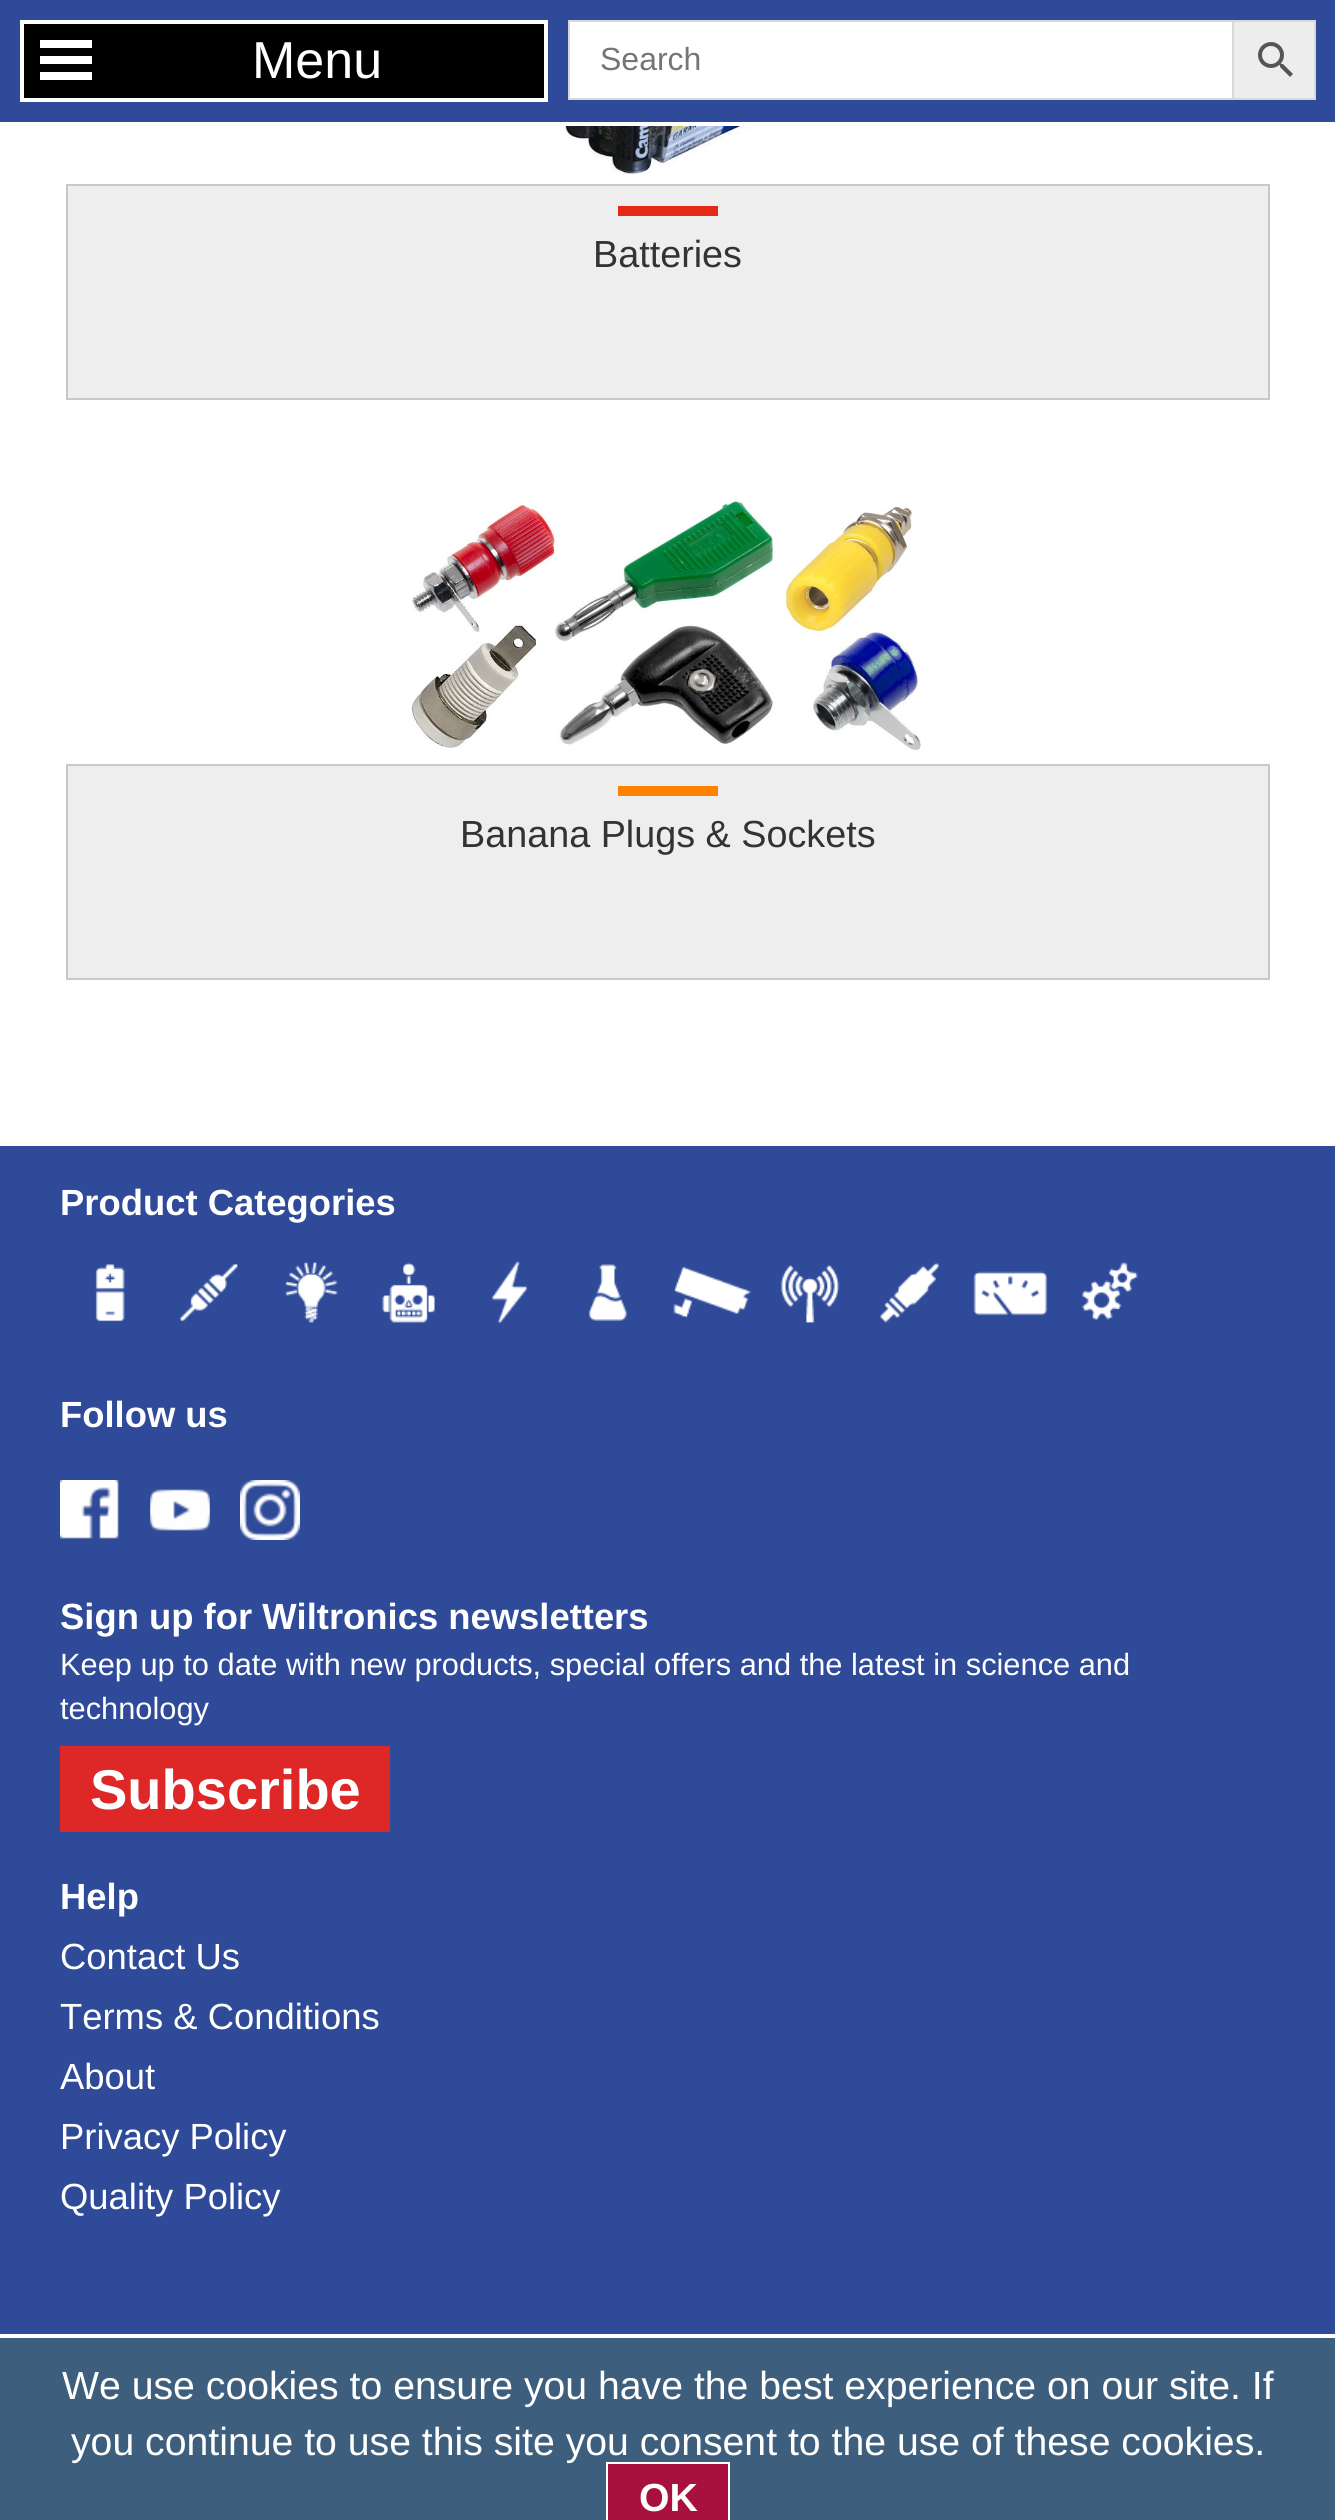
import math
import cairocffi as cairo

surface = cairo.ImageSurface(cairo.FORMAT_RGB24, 1335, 2520)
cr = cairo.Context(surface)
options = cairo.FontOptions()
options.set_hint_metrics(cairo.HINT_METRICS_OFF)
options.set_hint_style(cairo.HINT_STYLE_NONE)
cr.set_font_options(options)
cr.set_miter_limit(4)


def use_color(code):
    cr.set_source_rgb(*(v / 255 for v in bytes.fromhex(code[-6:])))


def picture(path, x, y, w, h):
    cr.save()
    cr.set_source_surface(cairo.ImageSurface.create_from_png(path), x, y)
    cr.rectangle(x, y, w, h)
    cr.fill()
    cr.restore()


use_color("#ffffff")
cr.paint()
use_color("#2e4a98")
cr.rectangle(0, 0, 1335, 122)
cr.fill()
use_color("#000000")
cr.rectangle(22, 22, 524, 78)
cr.fill_preserve()
use_color("#ffffff")
cr.set_line_width(4)
cr.stroke()
cr.rectangle(40, 72, 52, 8)
cr.fill()
cr.rectangle(40, 56, 52, 8)
cr.fill()
cr.rectangle(40, 40, 52, 8)
cr.fill()
cr.select_font_face("Liberation Sans")
cr.set_font_size(52)
cr.move_to(252, 78)
cr.show_text("Menu")
cr.rectangle(570, 22, 662, 76)
cr.fill()
use_color("#ededed")
cr.rectangle(1233, 21, 82, 78)
cr.fill_preserve()
use_color("#d8d8d8")
cr.set_line_width(2)
cr.stroke()
cr.rectangle(569, 21, 664, 78)
cr.stroke()
cr.set_font_size(32)
use_color("#757575")
cr.move_to(600, 70)
cr.show_text("Search")
picture("img1.png", 1258, 42, 35, 35)
picture("img2.png", 512, 126, 312, 48)
use_color("#eeeeee")
cr.rectangle(67, 185, 1202, 214)
cr.fill_preserve()
use_color("#c8c8c8")
cr.stroke()
use_color("#e62817")
cr.rectangle(618, 206, 100, 10)
cr.fill()
cr.set_font_size(37.75)
use_color("#333333")
cr.move_to(593, 267)
cr.show_text("Batteries")
picture("img3.png", 411, 500, 510, 251)
use_color("#eeeeee")
cr.rectangle(67, 765, 1202, 214)
cr.fill_preserve()
use_color("#c8c8c8")
cr.stroke()
use_color("#ff8100")
cr.rectangle(618, 786, 100, 10)
cr.fill()
use_color("#333333")
cr.move_to(460, 847)
cr.show_text("Banana Plugs & Sockets")
use_color("#2e4a98")
cr.rectangle(0, 1146, 1335, 1188)
cr.fill()
cr.select_font_face("Liberation Sans", cairo.FONT_SLANT_NORMAL, cairo.FONT_WEIGHT_BOLD)
cr.set_font_size(36.4)
use_color("#ffffff")
cr.move_to(60, 1215)
cr.show_text("Product Categories")
picture("img4.png", 95, 1264, 30, 58)
picture("img5.png", 180, 1264, 58, 58)
picture("img6.png", 285, 1261, 53, 62)
picture("img7.png", 382, 1262, 53, 61)
picture("img8.png", 492, 1261, 35, 62)
picture("img9.png", 589, 1264, 38, 58)
picture("img10.png", 673, 1267, 79, 51)
picture("img11.png", 780, 1265, 60, 58)
picture("img12.png", 879, 1262, 60, 61)
picture("img13.png", 973, 1271, 75, 45)
picture("img14.png", 1082, 1262, 56, 58)
cr.move_to(60, 1427)
cr.show_text("Follow us")
picture("img15.png", 60, 1480, 59, 59)
picture("img16.png", 150, 1489, 60, 42)
picture("img17.png", 240, 1480, 60, 60)
cr.move_to(60, 1629)
cr.show_text("Sign up for Wiltronics newsletters")
cr.select_font_face("Liberation Sans")
cr.set_font_size(30.8)
cr.move_to(60, 1675)
cr.show_text("Keep up to date with new products, special offers and the latest in science and")
cr.move_to(60, 1719)
cr.show_text("technology")
use_color("#dd2827")
cr.rectangle(60, 1746, 330, 86)
cr.fill()
cr.select_font_face("Liberation Sans", cairo.FONT_SLANT_NORMAL, cairo.FONT_WEIGHT_BOLD)
cr.set_font_size(56)
use_color("#ffffff")
cr.move_to(90, 1809)
cr.show_text("Subscribe")
cr.set_font_size(36.4)
cr.move_to(60, 1909)
cr.show_text("Help")
cr.select_font_face("Liberation Sans")
cr.move_to(60, 1969)
cr.show_text("Contact Us")
cr.move_to(60, 2029)
cr.show_text("Terms & Conditions")
cr.move_to(60, 2089)
cr.show_text("About")
cr.move_to(60, 2149)
cr.show_text("Privacy Policy")
cr.move_to(60, 2209)
cr.show_text("Quality Policy")
use_color("#3e5e7d")
cr.rectangle(0, 2338, 1335, 182)
cr.fill()
cr.set_font_size(39.2)
use_color("#ffffff")
cr.move_to(62, 2399)
cr.show_text("We use cookies to ensure you have the best experience on our site. If")
cr.move_to(71, 2455)
cr.show_text("you continue to use this site you consent to the use of these cookies.")
use_color("#a8113e")
cr.rectangle(607, 2463, 122, 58)
cr.fill_preserve()
use_color("#ffffff")
cr.stroke()
cr.select_font_face("Liberation Sans", cairo.FONT_SLANT_NORMAL, cairo.FONT_WEIGHT_BOLD)
cr.move_to(639, 2511)
cr.show_text("OK")
surface.write_to_png("result.png")
